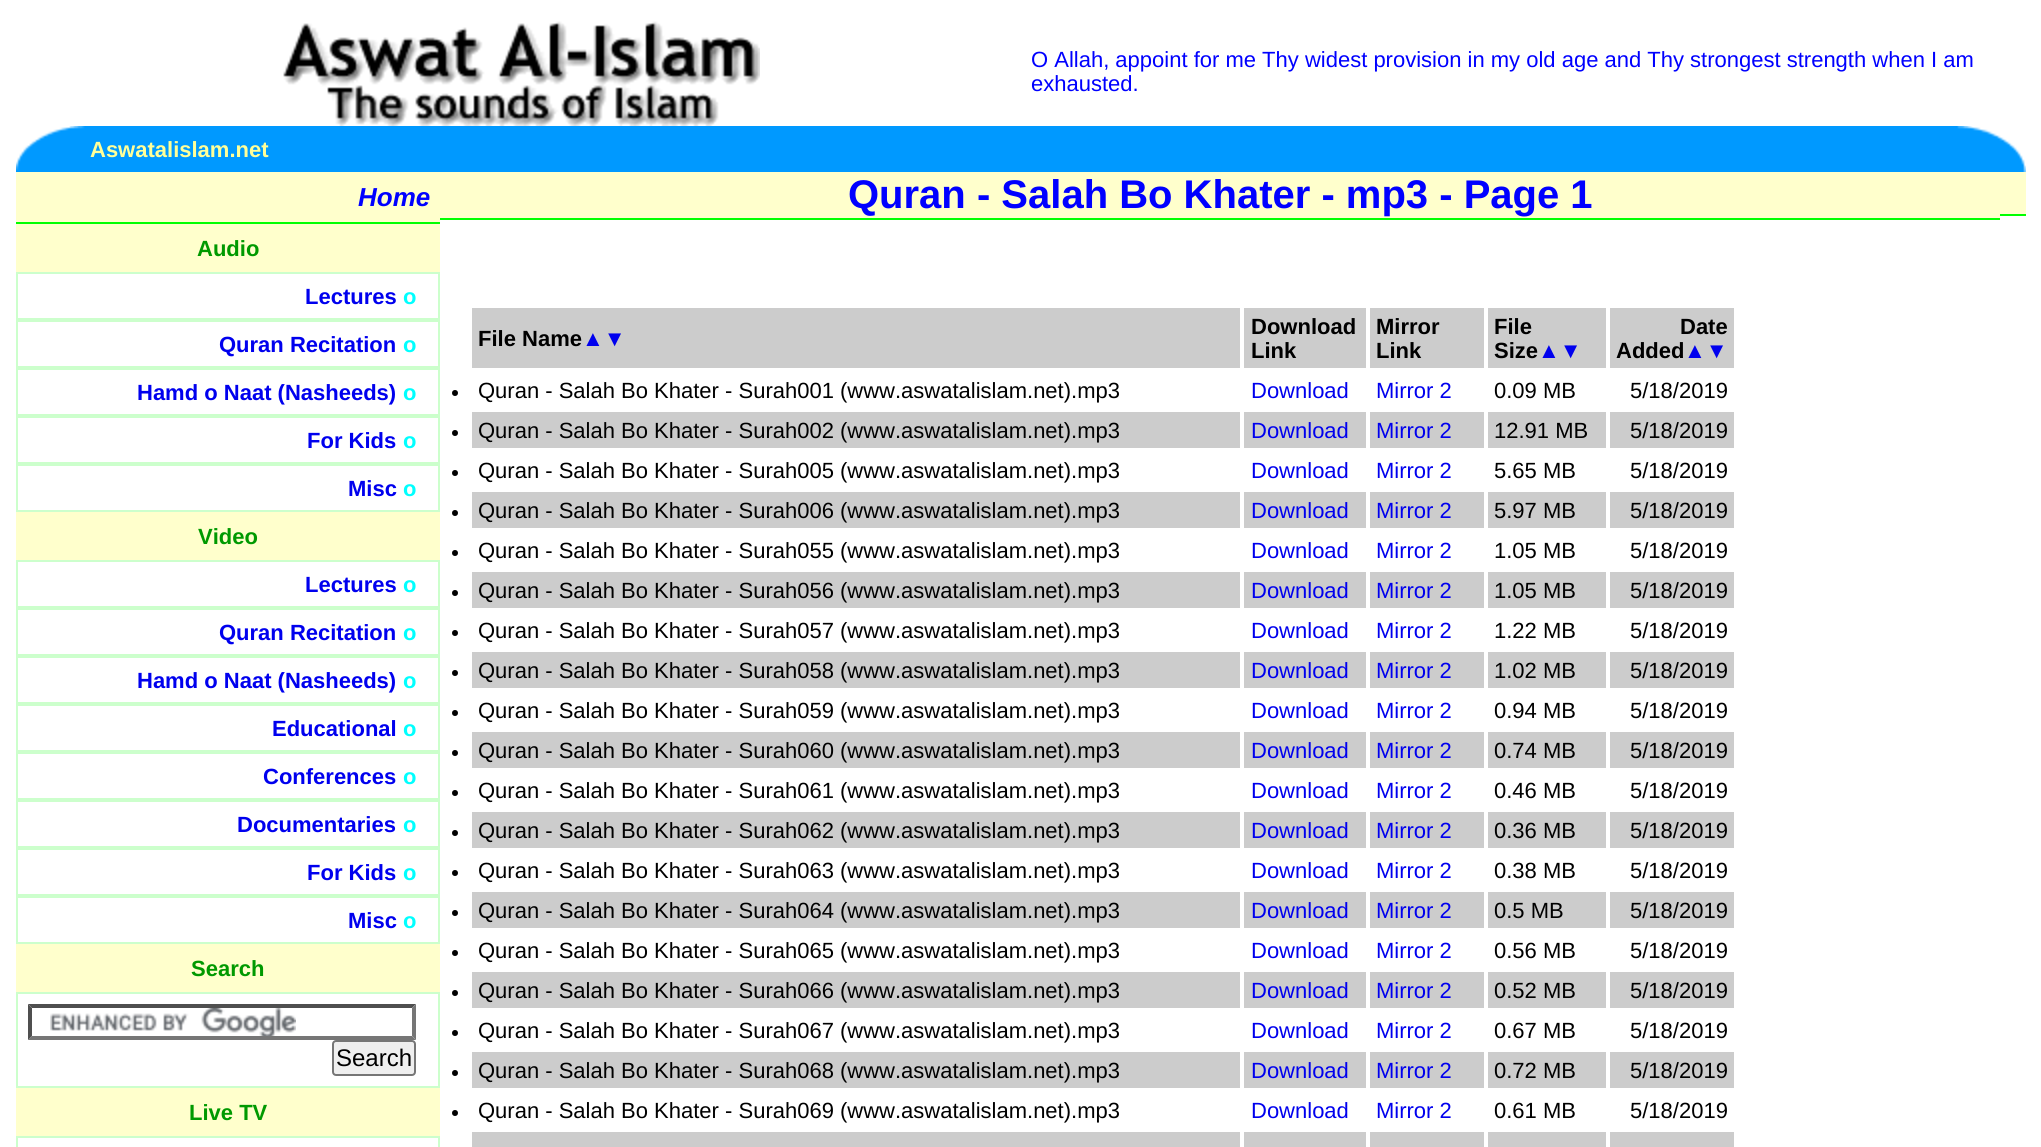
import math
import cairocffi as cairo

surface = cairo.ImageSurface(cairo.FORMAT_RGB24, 2041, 1147)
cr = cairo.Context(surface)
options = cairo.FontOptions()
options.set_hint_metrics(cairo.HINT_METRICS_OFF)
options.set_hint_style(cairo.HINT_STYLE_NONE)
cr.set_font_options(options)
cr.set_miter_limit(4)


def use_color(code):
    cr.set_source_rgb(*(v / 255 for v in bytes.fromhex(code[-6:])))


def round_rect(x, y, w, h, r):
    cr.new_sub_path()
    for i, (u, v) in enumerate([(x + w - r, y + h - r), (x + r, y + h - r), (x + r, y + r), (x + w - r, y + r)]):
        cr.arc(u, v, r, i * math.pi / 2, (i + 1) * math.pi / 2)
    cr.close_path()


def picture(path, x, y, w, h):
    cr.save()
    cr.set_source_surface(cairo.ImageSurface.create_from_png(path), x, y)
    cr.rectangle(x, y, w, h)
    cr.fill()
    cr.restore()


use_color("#ffffff")
cr.paint()
picture("img1.png", 283, 21, 477, 105)
cr.select_font_face("Liberation Sans")
cr.set_font_size(22)
use_color("#0000ff")
cr.move_to(1031, 67)
cr.show_text("O Allah, appoint for me Thy widest provision in my old age and Thy strongest strength when I am")
cr.move_to(1031, 91)
cr.show_text("exhausted.")
picture("img2.png", 16, 126, 74, 46)
use_color("#0099ff")
cr.rectangle(90, 126, 1860, 46)
cr.fill()
cr.select_font_face("Liberation Sans", cairo.FONT_SLANT_NORMAL, cairo.FONT_WEIGHT_BOLD)
use_color("#ffff99")
cr.move_to(90, 157)
cr.show_text("Aswatalislam.net")
picture("img3.png", 1950, 126, 76, 46)
use_color("#ffffcc")
cr.rectangle(16, 172, 424, 50)
cr.fill()
use_color("#00ff00")
cr.rectangle(16, 222, 424, 2)
cr.fill()
cr.select_font_face("Liberation Sans", cairo.FONT_SLANT_ITALIC, cairo.FONT_WEIGHT_BOLD)
cr.set_font_size(26)
use_color("#0000ff")
cr.move_to(358, 206)
cr.show_text("Home")
use_color("#ffffcc")
cr.rectangle(16, 224, 424, 48)
cr.fill()
cr.select_font_face("Liberation Sans", cairo.FONT_SLANT_NORMAL, cairo.FONT_WEIGHT_BOLD)
cr.set_font_size(22)
use_color("#009900")
cr.move_to(197, 256)
cr.show_text("Audio")
cr.rectangle(17, 273, 422, 46)
use_color("#ccffcc")
cr.stroke()
use_color("#0000ee")
cr.move_to(305, 304)
cr.show_text("Lectures")
use_color("#00ffff")
cr.move_to(403, 304)
cr.show_text("o")
cr.rectangle(17, 321, 422, 46)
use_color("#ccffcc")
cr.stroke()
use_color("#0000ee")
cr.move_to(219, 352)
cr.show_text("Quran Recitation")
use_color("#00ffff")
cr.move_to(403, 352)
cr.show_text("o")
cr.rectangle(17, 369, 422, 46)
use_color("#ccffcc")
cr.stroke()
use_color("#0000ee")
cr.move_to(137, 400)
cr.show_text("Hamd o Naat (Nasheeds)")
use_color("#00ffff")
cr.move_to(403, 400)
cr.show_text("o")
cr.rectangle(17, 417, 422, 46)
use_color("#ccffcc")
cr.stroke()
use_color("#0000ee")
cr.move_to(307, 448)
cr.show_text("For Kids")
use_color("#00ffff")
cr.move_to(403, 448)
cr.show_text("o")
cr.rectangle(17, 465, 422, 46)
use_color("#ccffcc")
cr.stroke()
use_color("#0000ee")
cr.move_to(348, 496)
cr.show_text("Misc")
use_color("#00ffff")
cr.move_to(403, 496)
cr.show_text("o")
use_color("#ffffcc")
cr.rectangle(16, 512, 424, 48)
cr.fill()
use_color("#009900")
cr.move_to(198, 544)
cr.show_text("Video")
cr.rectangle(17, 561, 422, 46)
use_color("#ccffcc")
cr.stroke()
use_color("#0000ee")
cr.move_to(305, 592)
cr.show_text("Lectures")
use_color("#00ffff")
cr.move_to(403, 592)
cr.show_text("o")
cr.rectangle(17, 609, 422, 46)
use_color("#ccffcc")
cr.stroke()
use_color("#0000ee")
cr.move_to(219, 640)
cr.show_text("Quran Recitation")
use_color("#00ffff")
cr.move_to(403, 640)
cr.show_text("o")
cr.rectangle(17, 657, 422, 46)
use_color("#ccffcc")
cr.stroke()
use_color("#0000ee")
cr.move_to(137, 688)
cr.show_text("Hamd o Naat (Nasheeds)")
use_color("#00ffff")
cr.move_to(403, 688)
cr.show_text("o")
cr.rectangle(17, 705, 422, 46)
use_color("#ccffcc")
cr.stroke()
use_color("#0000ee")
cr.move_to(272, 736)
cr.show_text("Educational")
use_color("#00ffff")
cr.move_to(403, 736)
cr.show_text("o")
cr.rectangle(17, 753, 422, 46)
use_color("#ccffcc")
cr.stroke()
use_color("#0000ee")
cr.move_to(263, 784)
cr.show_text("Conferences")
use_color("#00ffff")
cr.move_to(403, 784)
cr.show_text("o")
cr.rectangle(17, 801, 422, 46)
use_color("#ccffcc")
cr.stroke()
use_color("#0000ee")
cr.move_to(237, 832)
cr.show_text("Documentaries")
use_color("#00ffff")
cr.move_to(403, 832)
cr.show_text("o")
cr.rectangle(17, 849, 422, 46)
use_color("#ccffcc")
cr.stroke()
use_color("#0000ee")
cr.move_to(307, 880)
cr.show_text("For Kids")
use_color("#00ffff")
cr.move_to(403, 880)
cr.show_text("o")
cr.rectangle(17, 897, 422, 46)
use_color("#ccffcc")
cr.stroke()
use_color("#0000ee")
cr.move_to(348, 928)
cr.show_text("Misc")
use_color("#00ffff")
cr.move_to(403, 928)
cr.show_text("o")
use_color("#ffffcc")
cr.rectangle(16, 944, 424, 48)
cr.fill()
use_color("#009900")
cr.move_to(191, 976)
cr.show_text("Search")
cr.rectangle(17, 993, 422, 94)
use_color("#ccffcc")
cr.stroke()
picture("img4.png", 50, 1008, 246, 28)
use_color("#4f4f4f")
cr.new_path()
cr.move_to(28, 1004)
cr.line_to(416, 1004)
cr.line_to(412, 1008)
cr.line_to(32, 1008)
cr.close_path()
cr.fill()
use_color("#767676")
cr.new_path()
cr.move_to(416, 1004)
cr.line_to(416, 1040)
cr.line_to(412, 1036)
cr.line_to(412, 1008)
cr.close_path()
cr.fill()
cr.new_path()
cr.move_to(416, 1040)
cr.line_to(28, 1040)
cr.line_to(32, 1036)
cr.line_to(412, 1036)
cr.close_path()
cr.fill()
use_color("#4f4f4f")
cr.new_path()
cr.move_to(28, 1040)
cr.line_to(28, 1004)
cr.line_to(32, 1008)
cr.line_to(32, 1036)
cr.close_path()
cr.fill()
use_color("#efefef")
round_rect(333, 1041, 82, 34, 3)
cr.fill_preserve()
use_color("#767676")
cr.stroke()
cr.select_font_face("Liberation Sans")
cr.set_font_size(24)
use_color("#000000")
cr.move_to(336, 1066)
cr.show_text("Search")
use_color("#ffffcc")
cr.rectangle(16, 1088, 424, 48)
cr.fill()
cr.select_font_face("Liberation Sans", cairo.FONT_SLANT_NORMAL, cairo.FONT_WEIGHT_BOLD)
cr.set_font_size(22)
use_color("#009900")
cr.move_to(189, 1120)
cr.show_text("Live TV")
cr.rectangle(17, 1137, 422, 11)
use_color("#ccffcc")
cr.stroke()
use_color("#ffffcc")
cr.rectangle(440, 172, 1560, 46)
cr.fill()
use_color("#00ff00")
cr.rectangle(440, 218, 1560, 2)
cr.fill()
cr.set_font_size(40)
use_color("#0000ff")
cr.move_to(848, 208)
cr.show_text("Quran - Salah Bo Khater - mp3 - Page 1")
use_color("#cccccc")
cr.rectangle(472, 308, 1262, 60)
cr.fill()
cr.rectangle(471, 307, 770, 62)
use_color("#ffffff")
cr.stroke()
cr.set_font_size(22)
use_color("#000000")
cr.move_to(478, 346)
cr.show_text("File Name")
cr.select_font_face("Liberation Sans")
use_color("#0000ee")
cr.move_to(582, 346)
cr.show_text("▲▼")
cr.rectangle(1243, 307, 124, 62)
use_color("#ffffff")
cr.stroke()
cr.select_font_face("Liberation Sans", cairo.FONT_SLANT_NORMAL, cairo.FONT_WEIGHT_BOLD)
use_color("#000000")
cr.move_to(1251, 334)
cr.show_text("Download")
cr.move_to(1251, 358)
cr.show_text("Link")
cr.rectangle(1369, 307, 116, 62)
use_color("#ffffff")
cr.stroke()
use_color("#000000")
cr.move_to(1376, 334)
cr.show_text("Mirror")
cr.move_to(1376, 358)
cr.show_text("Link")
cr.rectangle(1487, 307, 120, 62)
use_color("#ffffff")
cr.stroke()
use_color("#000000")
cr.move_to(1494, 334)
cr.show_text("File")
cr.move_to(1494, 358)
cr.show_text("Size")
cr.select_font_face("Liberation Sans")
use_color("#0000ee")
cr.move_to(1538, 358)
cr.show_text("▲▼")
cr.rectangle(1609, 307, 126, 62)
use_color("#ffffff")
cr.stroke()
cr.select_font_face("Liberation Sans", cairo.FONT_SLANT_NORMAL, cairo.FONT_WEIGHT_BOLD)
use_color("#000000")
cr.move_to(1680, 334)
cr.show_text("Date")
cr.move_to(1616, 358)
cr.show_text("Added")
cr.select_font_face("Liberation Sans")
use_color("#0000ee")
cr.move_to(1684, 358)
cr.show_text("▲▼")
use_color("#000000")
cr.new_path()
cr.arc(455, 393, 3, 0, 2 * math.pi)
cr.fill()
cr.move_to(478, 398)
cr.show_text("Quran - Salah Bo Khater - Surah001 (www.aswatalislam.net).mp3")
use_color("#0000ee")
cr.move_to(1251, 398)
cr.show_text("Download")
cr.move_to(1376, 398)
cr.show_text("Mirror 2")
use_color("#000000")
cr.move_to(1494, 398)
cr.show_text("0.09 MB")
cr.move_to(1630, 398)
cr.show_text("5/18/2019")
use_color("#cccccc")
cr.rectangle(472, 412, 1262, 36)
cr.fill()
cr.rectangle(471, 411, 770, 38)
use_color("#ffffff")
cr.stroke()
use_color("#000000")
cr.arc(455, 433, 3, 0, 2 * math.pi)
cr.fill()
cr.move_to(478, 438)
cr.show_text("Quran - Salah Bo Khater - Surah002 (www.aswatalislam.net).mp3")
cr.rectangle(1243, 411, 124, 38)
use_color("#ffffff")
cr.stroke()
use_color("#0000ee")
cr.move_to(1251, 438)
cr.show_text("Download")
cr.rectangle(1369, 411, 116, 38)
use_color("#ffffff")
cr.stroke()
use_color("#0000ee")
cr.move_to(1376, 438)
cr.show_text("Mirror 2")
cr.rectangle(1487, 411, 120, 38)
use_color("#ffffff")
cr.stroke()
use_color("#000000")
cr.move_to(1494, 438)
cr.show_text("12.91 MB")
cr.rectangle(1609, 411, 126, 38)
use_color("#ffffff")
cr.stroke()
use_color("#000000")
cr.move_to(1630, 438)
cr.show_text("5/18/2019")
cr.new_path()
cr.arc(455, 473, 3, 0, 2 * math.pi)
cr.fill()
cr.move_to(478, 478)
cr.show_text("Quran - Salah Bo Khater - Surah005 (www.aswatalislam.net).mp3")
use_color("#0000ee")
cr.move_to(1251, 478)
cr.show_text("Download")
cr.move_to(1376, 478)
cr.show_text("Mirror 2")
use_color("#000000")
cr.move_to(1494, 478)
cr.show_text("5.65 MB")
cr.move_to(1630, 478)
cr.show_text("5/18/2019")
use_color("#cccccc")
cr.rectangle(472, 492, 1262, 36)
cr.fill()
cr.rectangle(471, 491, 770, 38)
use_color("#ffffff")
cr.stroke()
use_color("#000000")
cr.arc(455, 513, 3, 0, 2 * math.pi)
cr.fill()
cr.move_to(478, 518)
cr.show_text("Quran - Salah Bo Khater - Surah006 (www.aswatalislam.net).mp3")
cr.rectangle(1243, 491, 124, 38)
use_color("#ffffff")
cr.stroke()
use_color("#0000ee")
cr.move_to(1251, 518)
cr.show_text("Download")
cr.rectangle(1369, 491, 116, 38)
use_color("#ffffff")
cr.stroke()
use_color("#0000ee")
cr.move_to(1376, 518)
cr.show_text("Mirror 2")
cr.rectangle(1487, 491, 120, 38)
use_color("#ffffff")
cr.stroke()
use_color("#000000")
cr.move_to(1494, 518)
cr.show_text("5.97 MB")
cr.rectangle(1609, 491, 126, 38)
use_color("#ffffff")
cr.stroke()
use_color("#000000")
cr.move_to(1630, 518)
cr.show_text("5/18/2019")
cr.new_path()
cr.arc(455, 553, 3, 0, 2 * math.pi)
cr.fill()
cr.move_to(478, 558)
cr.show_text("Quran - Salah Bo Khater - Surah055 (www.aswatalislam.net).mp3")
use_color("#0000ee")
cr.move_to(1251, 558)
cr.show_text("Download")
cr.move_to(1376, 558)
cr.show_text("Mirror 2")
use_color("#000000")
cr.move_to(1494, 558)
cr.show_text("1.05 MB")
cr.move_to(1630, 558)
cr.show_text("5/18/2019")
use_color("#cccccc")
cr.rectangle(472, 572, 1262, 36)
cr.fill()
cr.rectangle(471, 571, 770, 38)
use_color("#ffffff")
cr.stroke()
use_color("#000000")
cr.arc(455, 593, 3, 0, 2 * math.pi)
cr.fill()
cr.move_to(478, 598)
cr.show_text("Quran - Salah Bo Khater - Surah056 (www.aswatalislam.net).mp3")
cr.rectangle(1243, 571, 124, 38)
use_color("#ffffff")
cr.stroke()
use_color("#0000ee")
cr.move_to(1251, 598)
cr.show_text("Download")
cr.rectangle(1369, 571, 116, 38)
use_color("#ffffff")
cr.stroke()
use_color("#0000ee")
cr.move_to(1376, 598)
cr.show_text("Mirror 2")
cr.rectangle(1487, 571, 120, 38)
use_color("#ffffff")
cr.stroke()
use_color("#000000")
cr.move_to(1494, 598)
cr.show_text("1.05 MB")
cr.rectangle(1609, 571, 126, 38)
use_color("#ffffff")
cr.stroke()
use_color("#000000")
cr.move_to(1630, 598)
cr.show_text("5/18/2019")
cr.new_path()
cr.arc(455, 633, 3, 0, 2 * math.pi)
cr.fill()
cr.move_to(478, 638)
cr.show_text("Quran - Salah Bo Khater - Surah057 (www.aswatalislam.net).mp3")
use_color("#0000ee")
cr.move_to(1251, 638)
cr.show_text("Download")
cr.move_to(1376, 638)
cr.show_text("Mirror 2")
use_color("#000000")
cr.move_to(1494, 638)
cr.show_text("1.22 MB")
cr.move_to(1630, 638)
cr.show_text("5/18/2019")
use_color("#cccccc")
cr.rectangle(472, 652, 1262, 36)
cr.fill()
cr.rectangle(471, 651, 770, 38)
use_color("#ffffff")
cr.stroke()
use_color("#000000")
cr.arc(455, 673, 3, 0, 2 * math.pi)
cr.fill()
cr.move_to(478, 678)
cr.show_text("Quran - Salah Bo Khater - Surah058 (www.aswatalislam.net).mp3")
cr.rectangle(1243, 651, 124, 38)
use_color("#ffffff")
cr.stroke()
use_color("#0000ee")
cr.move_to(1251, 678)
cr.show_text("Download")
cr.rectangle(1369, 651, 116, 38)
use_color("#ffffff")
cr.stroke()
use_color("#0000ee")
cr.move_to(1376, 678)
cr.show_text("Mirror 2")
cr.rectangle(1487, 651, 120, 38)
use_color("#ffffff")
cr.stroke()
use_color("#000000")
cr.move_to(1494, 678)
cr.show_text("1.02 MB")
cr.rectangle(1609, 651, 126, 38)
use_color("#ffffff")
cr.stroke()
use_color("#000000")
cr.move_to(1630, 678)
cr.show_text("5/18/2019")
cr.new_path()
cr.arc(455, 713, 3, 0, 2 * math.pi)
cr.fill()
cr.move_to(478, 718)
cr.show_text("Quran - Salah Bo Khater - Surah059 (www.aswatalislam.net).mp3")
use_color("#0000ee")
cr.move_to(1251, 718)
cr.show_text("Download")
cr.move_to(1376, 718)
cr.show_text("Mirror 2")
use_color("#000000")
cr.move_to(1494, 718)
cr.show_text("0.94 MB")
cr.move_to(1630, 718)
cr.show_text("5/18/2019")
use_color("#cccccc")
cr.rectangle(472, 732, 1262, 36)
cr.fill()
cr.rectangle(471, 731, 770, 38)
use_color("#ffffff")
cr.stroke()
use_color("#000000")
cr.arc(455, 753, 3, 0, 2 * math.pi)
cr.fill()
cr.move_to(478, 758)
cr.show_text("Quran - Salah Bo Khater - Surah060 (www.aswatalislam.net).mp3")
cr.rectangle(1243, 731, 124, 38)
use_color("#ffffff")
cr.stroke()
use_color("#0000ee")
cr.move_to(1251, 758)
cr.show_text("Download")
cr.rectangle(1369, 731, 116, 38)
use_color("#ffffff")
cr.stroke()
use_color("#0000ee")
cr.move_to(1376, 758)
cr.show_text("Mirror 2")
cr.rectangle(1487, 731, 120, 38)
use_color("#ffffff")
cr.stroke()
use_color("#000000")
cr.move_to(1494, 758)
cr.show_text("0.74 MB")
cr.rectangle(1609, 731, 126, 38)
use_color("#ffffff")
cr.stroke()
use_color("#000000")
cr.move_to(1630, 758)
cr.show_text("5/18/2019")
cr.new_path()
cr.arc(455, 793, 3, 0, 2 * math.pi)
cr.fill()
cr.move_to(478, 798)
cr.show_text("Quran - Salah Bo Khater - Surah061 (www.aswatalislam.net).mp3")
use_color("#0000ee")
cr.move_to(1251, 798)
cr.show_text("Download")
cr.move_to(1376, 798)
cr.show_text("Mirror 2")
use_color("#000000")
cr.move_to(1494, 798)
cr.show_text("0.46 MB")
cr.move_to(1630, 798)
cr.show_text("5/18/2019")
use_color("#cccccc")
cr.rectangle(472, 812, 1262, 36)
cr.fill()
cr.rectangle(471, 811, 770, 38)
use_color("#ffffff")
cr.stroke()
use_color("#000000")
cr.arc(455, 833, 3, 0, 2 * math.pi)
cr.fill()
cr.move_to(478, 838)
cr.show_text("Quran - Salah Bo Khater - Surah062 (www.aswatalislam.net).mp3")
cr.rectangle(1243, 811, 124, 38)
use_color("#ffffff")
cr.stroke()
use_color("#0000ee")
cr.move_to(1251, 838)
cr.show_text("Download")
cr.rectangle(1369, 811, 116, 38)
use_color("#ffffff")
cr.stroke()
use_color("#0000ee")
cr.move_to(1376, 838)
cr.show_text("Mirror 2")
cr.rectangle(1487, 811, 120, 38)
use_color("#ffffff")
cr.stroke()
use_color("#000000")
cr.move_to(1494, 838)
cr.show_text("0.36 MB")
cr.rectangle(1609, 811, 126, 38)
use_color("#ffffff")
cr.stroke()
use_color("#000000")
cr.move_to(1630, 838)
cr.show_text("5/18/2019")
cr.new_path()
cr.arc(455, 873, 3, 0, 2 * math.pi)
cr.fill()
cr.move_to(478, 878)
cr.show_text("Quran - Salah Bo Khater - Surah063 (www.aswatalislam.net).mp3")
use_color("#0000ee")
cr.move_to(1251, 878)
cr.show_text("Download")
cr.move_to(1376, 878)
cr.show_text("Mirror 2")
use_color("#000000")
cr.move_to(1494, 878)
cr.show_text("0.38 MB")
cr.move_to(1630, 878)
cr.show_text("5/18/2019")
use_color("#cccccc")
cr.rectangle(472, 892, 1262, 36)
cr.fill()
cr.rectangle(471, 891, 770, 38)
use_color("#ffffff")
cr.stroke()
use_color("#000000")
cr.arc(455, 913, 3, 0, 2 * math.pi)
cr.fill()
cr.move_to(478, 918)
cr.show_text("Quran - Salah Bo Khater - Surah064 (www.aswatalislam.net).mp3")
cr.rectangle(1243, 891, 124, 38)
use_color("#ffffff")
cr.stroke()
use_color("#0000ee")
cr.move_to(1251, 918)
cr.show_text("Download")
cr.rectangle(1369, 891, 116, 38)
use_color("#ffffff")
cr.stroke()
use_color("#0000ee")
cr.move_to(1376, 918)
cr.show_text("Mirror 2")
cr.rectangle(1487, 891, 120, 38)
use_color("#ffffff")
cr.stroke()
use_color("#000000")
cr.move_to(1494, 918)
cr.show_text("0.5 MB")
cr.rectangle(1609, 891, 126, 38)
use_color("#ffffff")
cr.stroke()
use_color("#000000")
cr.move_to(1630, 918)
cr.show_text("5/18/2019")
cr.new_path()
cr.arc(455, 953, 3, 0, 2 * math.pi)
cr.fill()
cr.move_to(478, 958)
cr.show_text("Quran - Salah Bo Khater - Surah065 (www.aswatalislam.net).mp3")
use_color("#0000ee")
cr.move_to(1251, 958)
cr.show_text("Download")
cr.move_to(1376, 958)
cr.show_text("Mirror 2")
use_color("#000000")
cr.move_to(1494, 958)
cr.show_text("0.56 MB")
cr.move_to(1630, 958)
cr.show_text("5/18/2019")
use_color("#cccccc")
cr.rectangle(472, 972, 1262, 36)
cr.fill()
cr.rectangle(471, 971, 770, 38)
use_color("#ffffff")
cr.stroke()
use_color("#000000")
cr.arc(455, 993, 3, 0, 2 * math.pi)
cr.fill()
cr.move_to(478, 998)
cr.show_text("Quran - Salah Bo Khater - Surah066 (www.aswatalislam.net).mp3")
cr.rectangle(1243, 971, 124, 38)
use_color("#ffffff")
cr.stroke()
use_color("#0000ee")
cr.move_to(1251, 998)
cr.show_text("Download")
cr.rectangle(1369, 971, 116, 38)
use_color("#ffffff")
cr.stroke()
use_color("#0000ee")
cr.move_to(1376, 998)
cr.show_text("Mirror 2")
cr.rectangle(1487, 971, 120, 38)
use_color("#ffffff")
cr.stroke()
use_color("#000000")
cr.move_to(1494, 998)
cr.show_text("0.52 MB")
cr.rectangle(1609, 971, 126, 38)
use_color("#ffffff")
cr.stroke()
use_color("#000000")
cr.move_to(1630, 998)
cr.show_text("5/18/2019")
cr.new_path()
cr.arc(455, 1033, 3, 0, 2 * math.pi)
cr.fill()
cr.move_to(478, 1038)
cr.show_text("Quran - Salah Bo Khater - Surah067 (www.aswatalislam.net).mp3")
use_color("#0000ee")
cr.move_to(1251, 1038)
cr.show_text("Download")
cr.move_to(1376, 1038)
cr.show_text("Mirror 2")
use_color("#000000")
cr.move_to(1494, 1038)
cr.show_text("0.67 MB")
cr.move_to(1630, 1038)
cr.show_text("5/18/2019")
use_color("#cccccc")
cr.rectangle(472, 1052, 1262, 36)
cr.fill()
cr.rectangle(471, 1051, 770, 38)
use_color("#ffffff")
cr.stroke()
use_color("#000000")
cr.arc(455, 1073, 3, 0, 2 * math.pi)
cr.fill()
cr.move_to(478, 1078)
cr.show_text("Quran - Salah Bo Khater - Surah068 (www.aswatalislam.net).mp3")
cr.rectangle(1243, 1051, 124, 38)
use_color("#ffffff")
cr.stroke()
use_color("#0000ee")
cr.move_to(1251, 1078)
cr.show_text("Download")
cr.rectangle(1369, 1051, 116, 38)
use_color("#ffffff")
cr.stroke()
use_color("#0000ee")
cr.move_to(1376, 1078)
cr.show_text("Mirror 2")
cr.rectangle(1487, 1051, 120, 38)
use_color("#ffffff")
cr.stroke()
use_color("#000000")
cr.move_to(1494, 1078)
cr.show_text("0.72 MB")
cr.rectangle(1609, 1051, 126, 38)
use_color("#ffffff")
cr.stroke()
use_color("#000000")
cr.move_to(1630, 1078)
cr.show_text("5/18/2019")
cr.new_path()
cr.arc(455, 1113, 3, 0, 2 * math.pi)
cr.fill()
cr.move_to(478, 1118)
cr.show_text("Quran - Salah Bo Khater - Surah069 (www.aswatalislam.net).mp3")
use_color("#0000ee")
cr.move_to(1251, 1118)
cr.show_text("Download")
cr.move_to(1376, 1118)
cr.show_text("Mirror 2")
use_color("#000000")
cr.move_to(1494, 1118)
cr.show_text("0.61 MB")
cr.move_to(1630, 1118)
cr.show_text("5/18/2019")
use_color("#cccccc")
cr.rectangle(472, 1132, 1262, 15)
cr.fill()
cr.rectangle(471, 1131, 770, 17)
use_color("#ffffff")
cr.stroke()
cr.rectangle(1243, 1131, 124, 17)
cr.stroke()
cr.rectangle(1369, 1131, 116, 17)
cr.stroke()
cr.rectangle(1487, 1131, 120, 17)
cr.stroke()
cr.rectangle(1609, 1131, 126, 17)
cr.stroke()
use_color("#ffffcc")
cr.rectangle(2000, 172, 26, 42)
cr.fill()
use_color("#00ff00")
cr.rectangle(2000, 214, 26, 2)
cr.fill()
surface.write_to_png("result.png")
